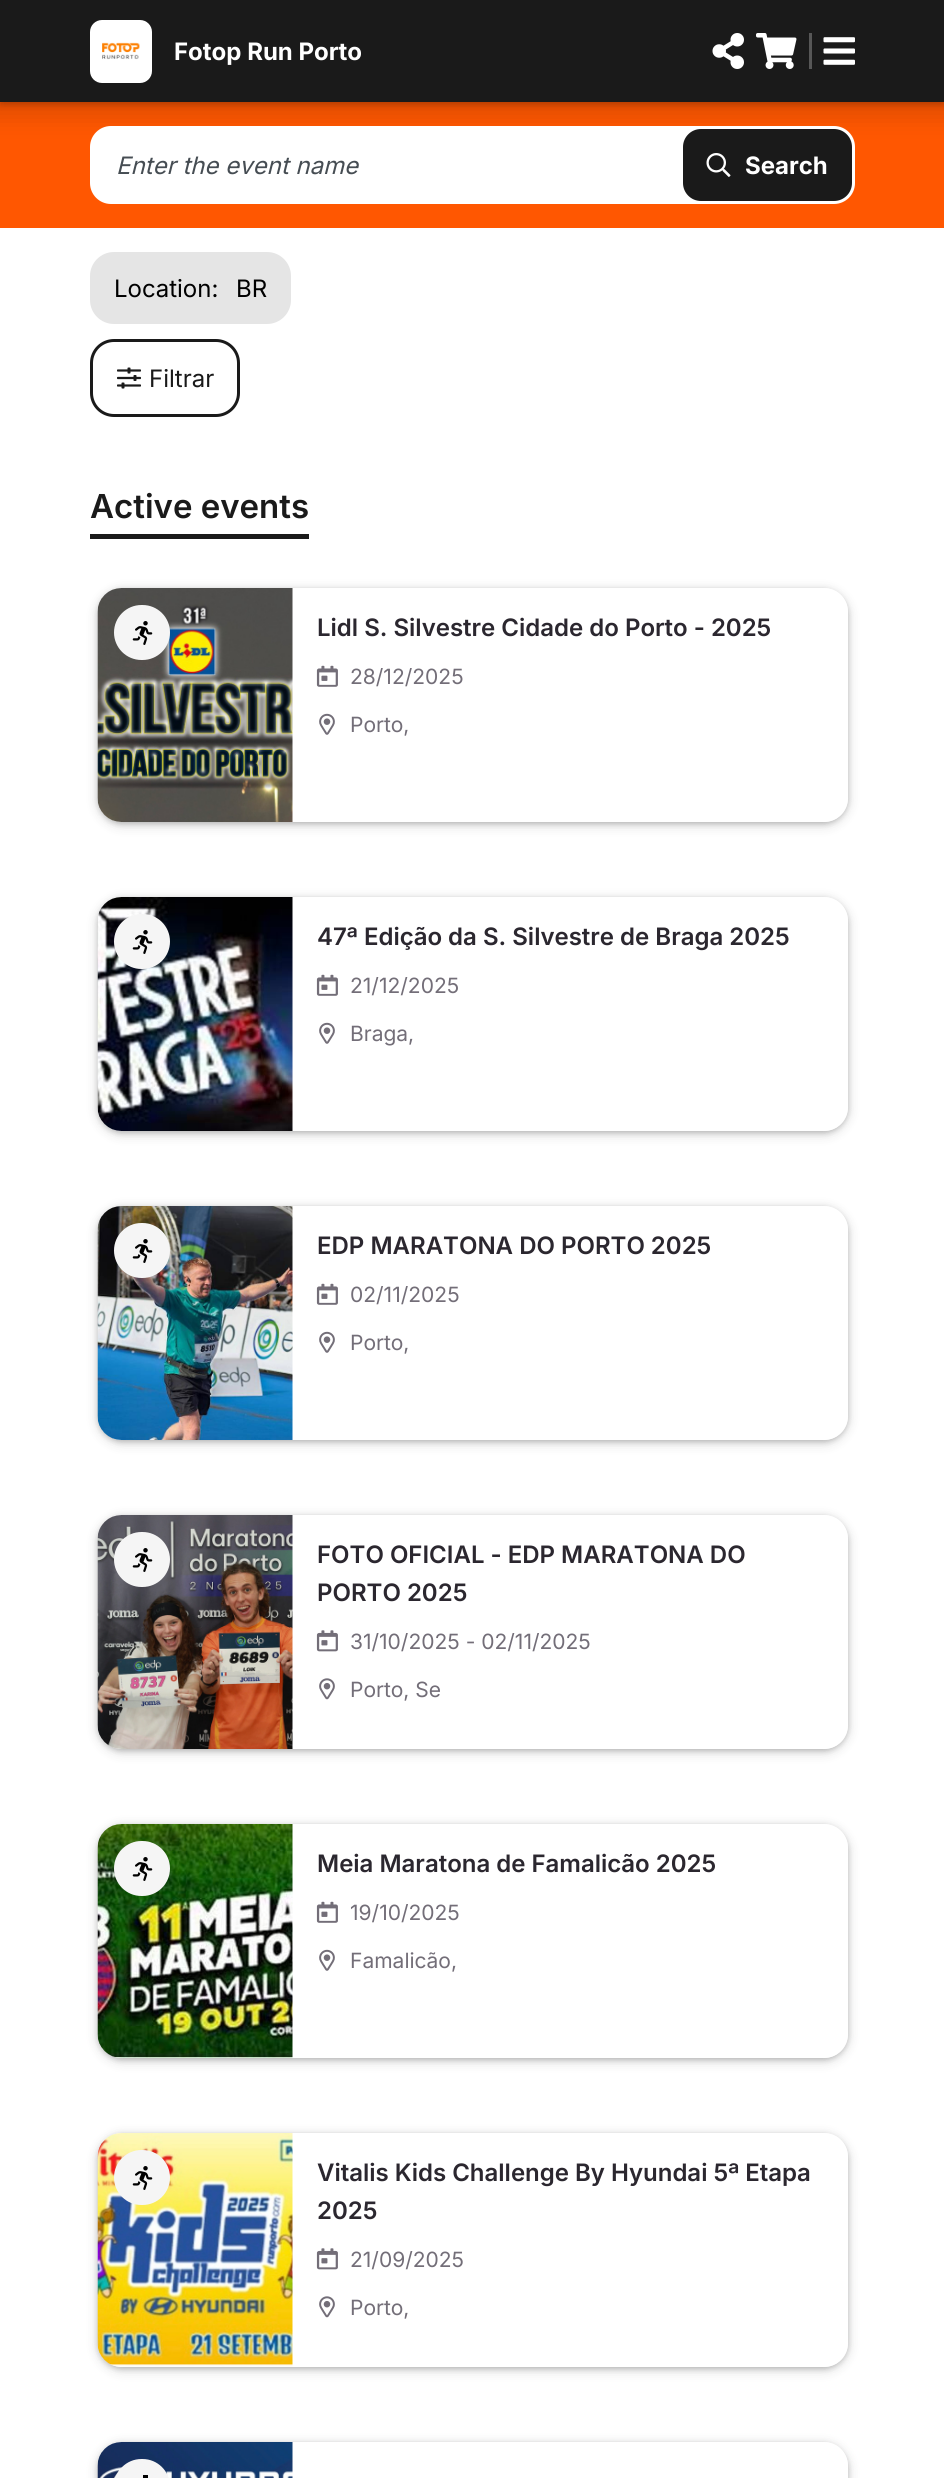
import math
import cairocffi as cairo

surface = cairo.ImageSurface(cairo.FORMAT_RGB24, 944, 2478)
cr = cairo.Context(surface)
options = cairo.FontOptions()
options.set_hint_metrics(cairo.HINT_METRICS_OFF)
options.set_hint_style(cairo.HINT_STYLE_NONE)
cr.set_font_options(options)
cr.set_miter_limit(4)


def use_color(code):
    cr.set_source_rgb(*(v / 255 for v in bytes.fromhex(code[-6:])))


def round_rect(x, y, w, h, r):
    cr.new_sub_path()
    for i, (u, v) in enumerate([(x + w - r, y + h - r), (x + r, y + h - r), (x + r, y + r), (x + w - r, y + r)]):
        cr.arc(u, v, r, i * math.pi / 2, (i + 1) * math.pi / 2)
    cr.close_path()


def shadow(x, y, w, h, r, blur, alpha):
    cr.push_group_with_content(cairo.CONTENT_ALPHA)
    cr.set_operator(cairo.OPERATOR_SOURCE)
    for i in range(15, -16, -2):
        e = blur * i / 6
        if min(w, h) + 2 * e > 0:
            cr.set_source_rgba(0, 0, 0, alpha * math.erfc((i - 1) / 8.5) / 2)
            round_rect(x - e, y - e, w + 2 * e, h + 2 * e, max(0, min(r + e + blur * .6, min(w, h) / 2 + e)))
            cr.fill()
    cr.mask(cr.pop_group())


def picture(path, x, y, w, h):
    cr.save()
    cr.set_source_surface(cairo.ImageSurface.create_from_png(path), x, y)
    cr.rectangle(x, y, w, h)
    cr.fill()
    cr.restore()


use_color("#ffffff")
cr.paint()
use_color("#ff5701")
cr.rectangle(0, 102, 944, 126)
cr.fill()
use_color("#000000")
shadow(-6, 3, 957, 114, 0, 12, 0.12)
shadow(0, 3, 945, 102, 0, 3, 0.2)
use_color("#1a1a1a")
cr.rectangle(0, 0, 944, 102)
cr.fill()
use_color("#ffffff")
round_rect(90, 20, 62, 63, 12)
cr.fill()
picture("img1.png", 102, 42, 38, 18)
cr.select_font_face("Inter", cairo.FONT_SLANT_NORMAL, cairo.FONT_WEIGHT_BOLD)
cr.set_font_size(24)
cr.move_to(174, 60)
cr.show_text("Fotop Run Porto")
picture("img2.png", 712, 33, 32, 36)
use_color("#575757")
cr.rectangle(809, 33, 3, 36)
cr.fill()
picture("img3.png", 756, 33, 41, 36)
picture("img4.png", 823, 37, 32, 28)
use_color("#ffffff")
round_rect(90, 126, 765, 78, 21)
cr.fill()
cr.select_font_face("Inter", cairo.FONT_SLANT_ITALIC)
use_color("#464d53")
cr.move_to(116, 174)
cr.show_text("Enter the event name")
use_color("#1a1a1a")
round_rect(683, 129, 169, 72, 18)
cr.fill()
picture("img5.png", 706, 153, 25, 24)
cr.select_font_face("Inter", cairo.FONT_SLANT_NORMAL, cairo.FONT_WEIGHT_BOLD)
use_color("#ffffff")
cr.move_to(745, 174)
cr.show_text("Search")
use_color("#e5e5e5")
round_rect(90, 252, 201, 72, 24)
cr.fill()
cr.select_font_face("Inter")
use_color("#000000")
cr.move_to(114, 297)
cr.show_text("Location:")
cr.move_to(236, 297)
cr.show_text("BR")
round_rect(91.5, 340.5, 147, 75, 22.5)
use_color("#1a1a1a")
cr.set_line_width(3)
cr.stroke()
picture("img6.png", 117, 367, 24, 22)
cr.move_to(149, 387)
cr.show_text("Filtrar")
cr.rectangle(90, 534, 219, 5)
cr.fill()
cr.select_font_face("Inter SemiBold")
cr.set_font_size(33)
cr.move_to(90, 518)
cr.show_text("Active events")
use_color("#000000")
shadow(95, 588, 756, 240, 27, 6, 0.08)
shadow(98, 590, 750, 234, 24, 3, 0.24)
use_color("#ffffff")
round_rect(98, 588, 750, 234, 24)
cr.fill()
picture("img7.png", 97, 588, 196, 234)
use_color("#f5f5f5")
round_rect(114, 605, 56, 55, 27.5)
cr.fill()
picture("img8.png", 132, 621, 21, 24)
cr.set_source_rgba(1, 1, 1, 0.8)
cr.new_path()
cr.move_to(293, 588)
cr.line_to(824, 588)
cr.curve_to(837.5, 588, 848, 598.5, 848, 612)
cr.line_to(848, 798)
cr.curve_to(848, 811.5, 837.5, 822, 824, 822)
cr.line_to(293, 822)
cr.close_path()
cr.fill()
cr.set_font_size(24)
use_color("#2b272f")
cr.move_to(317, 636)
cr.show_text("Lidl S. Silvestre Cidade do Porto - 2025")
picture("img9.png", 316, 665, 22, 22)
cr.select_font_face("Inter")
cr.set_font_size(21)
use_color("#736e78")
cr.move_to(350, 684)
cr.show_text("28/12/2025")
picture("img10.png", 319, 713, 16, 22)
cr.move_to(350, 732)
cr.show_text("Porto,")
use_color("#000000")
shadow(95, 897, 756, 240, 27, 6, 0.08)
shadow(98, 899, 750, 234, 24, 3, 0.24)
use_color("#ffffff")
round_rect(98, 897, 750, 234, 24)
cr.fill()
picture("img11.png", 97, 897, 196, 234)
use_color("#f5f5f5")
round_rect(114, 914, 56, 55, 27.5)
cr.fill()
picture("img8.png", 132, 930, 21, 24)
cr.set_source_rgba(1, 1, 1, 0.8)
cr.new_path()
cr.move_to(293, 897)
cr.line_to(824, 897)
cr.curve_to(837.5, 897, 848, 907.5, 848, 921)
cr.line_to(848, 1107)
cr.curve_to(848, 1120.5, 837.5, 1131, 824, 1131)
cr.line_to(293, 1131)
cr.close_path()
cr.fill()
cr.select_font_face("Inter SemiBold")
cr.set_font_size(24)
use_color("#2b272f")
cr.move_to(317, 945)
cr.show_text("47ª Edição da S. Silvestre de Braga 2025")
picture("img9.png", 316, 974, 22, 22)
cr.select_font_face("Inter")
cr.set_font_size(21)
use_color("#736e78")
cr.move_to(350, 993)
cr.show_text("21/12/2025")
picture("img10.png", 319, 1022, 16, 22)
cr.move_to(350, 1041)
cr.show_text("Braga,")
use_color("#000000")
shadow(95, 1206, 756, 240, 27, 6, 0.08)
shadow(98, 1208, 750, 234, 24, 3, 0.24)
use_color("#ffffff")
round_rect(98, 1206, 750, 234, 24)
cr.fill()
picture("img12.png", 97, 1206, 196, 234)
use_color("#f5f5f5")
round_rect(114, 1223, 56, 55, 27.5)
cr.fill()
picture("img8.png", 132, 1239, 21, 24)
cr.set_source_rgba(1, 1, 1, 0.8)
cr.new_path()
cr.move_to(293, 1206)
cr.line_to(824, 1206)
cr.curve_to(837.5, 1206, 848, 1216.5, 848, 1230)
cr.line_to(848, 1416)
cr.curve_to(848, 1429.5, 837.5, 1440, 824, 1440)
cr.line_to(293, 1440)
cr.close_path()
cr.fill()
cr.select_font_face("Inter SemiBold")
cr.set_font_size(24)
use_color("#2b272f")
cr.move_to(317, 1254)
cr.show_text("EDP MARATONA DO PORTO 2025")
picture("img9.png", 316, 1283, 22, 22)
cr.select_font_face("Inter")
cr.set_font_size(21)
use_color("#736e78")
cr.move_to(350, 1302)
cr.show_text("02/11/2025")
picture("img10.png", 319, 1331, 16, 22)
cr.move_to(350, 1350)
cr.show_text("Porto,")
use_color("#000000")
shadow(95, 1515, 756, 240, 27, 6, 0.08)
shadow(98, 1517, 750, 234, 24, 3, 0.24)
use_color("#ffffff")
round_rect(98, 1515, 750, 234, 24)
cr.fill()
picture("img13.png", 97, 1515, 196, 234)
use_color("#f5f5f5")
round_rect(114, 1532, 56, 55, 27.5)
cr.fill()
picture("img8.png", 132, 1548, 21, 24)
cr.set_source_rgba(1, 1, 1, 0.8)
cr.new_path()
cr.move_to(293, 1515)
cr.line_to(824, 1515)
cr.curve_to(837.5, 1515, 848, 1525.5, 848, 1539)
cr.line_to(848, 1725)
cr.curve_to(848, 1738.5, 837.5, 1749, 824, 1749)
cr.line_to(293, 1749)
cr.close_path()
cr.fill()
cr.select_font_face("Inter SemiBold")
cr.set_font_size(24)
use_color("#2b272f")
cr.move_to(317, 1563)
cr.show_text("FOTO OFICIAL - EDP MARATONA DO")
cr.move_to(317, 1601)
cr.show_text("PORTO 2025")
picture("img14.png", 316, 1630, 22, 22)
cr.select_font_face("Inter")
cr.set_font_size(21)
use_color("#736e78")
cr.move_to(350, 1649)
cr.show_text("31/10/2025 - 02/11/2025")
picture("img15.png", 319, 1678, 16, 22)
cr.move_to(350, 1697)
cr.show_text("Porto, Se")
use_color("#000000")
shadow(95, 1824, 756, 240, 27, 6, 0.08)
shadow(98, 1826, 750, 234, 24, 3, 0.24)
use_color("#ffffff")
round_rect(98, 1824, 750, 234, 24)
cr.fill()
picture("img16.png", 97, 1824, 196, 234)
use_color("#f5f5f5")
round_rect(114, 1841, 56, 55, 27.5)
cr.fill()
picture("img8.png", 132, 1857, 21, 24)
cr.set_source_rgba(1, 1, 1, 0.8)
cr.new_path()
cr.move_to(293, 1824)
cr.line_to(824, 1824)
cr.curve_to(837.5, 1824, 848, 1834.5, 848, 1848)
cr.line_to(848, 2034)
cr.curve_to(848, 2047.5, 837.5, 2058, 824, 2058)
cr.line_to(293, 2058)
cr.close_path()
cr.fill()
cr.select_font_face("Inter SemiBold")
cr.set_font_size(24)
use_color("#2b272f")
cr.move_to(317, 1872)
cr.show_text("Meia Maratona de Famalicão 2025")
picture("img9.png", 316, 1901, 22, 22)
cr.select_font_face("Inter")
cr.set_font_size(21)
use_color("#736e78")
cr.move_to(350, 1920)
cr.show_text("19/10/2025")
picture("img10.png", 319, 1949, 16, 22)
cr.move_to(350, 1968)
cr.show_text("Famalicão,")
use_color("#000000")
shadow(95, 2133, 756, 240, 27, 6, 0.08)
shadow(98, 2135, 750, 234, 24, 3, 0.24)
use_color("#ffffff")
round_rect(98, 2133, 750, 234, 24)
cr.fill()
picture("img17.png", 97, 2133, 196, 234)
use_color("#f5f5f5")
round_rect(114, 2150, 56, 55, 27.5)
cr.fill()
picture("img8.png", 132, 2166, 21, 24)
cr.set_source_rgba(1, 1, 1, 0.8)
cr.new_path()
cr.move_to(293, 2133)
cr.line_to(824, 2133)
cr.curve_to(837.5, 2133, 848, 2143.5, 848, 2157)
cr.line_to(848, 2343)
cr.curve_to(848, 2356.5, 837.5, 2367, 824, 2367)
cr.line_to(293, 2367)
cr.close_path()
cr.fill()
cr.select_font_face("Inter SemiBold")
cr.set_font_size(24)
use_color("#2b272f")
cr.move_to(317, 2181)
cr.show_text("Vitalis Kids Challenge By Hyundai 5ª Etapa")
cr.move_to(317, 2219)
cr.show_text("2025")
picture("img14.png", 316, 2248, 22, 22)
cr.select_font_face("Inter")
cr.set_font_size(21)
use_color("#736e78")
cr.move_to(350, 2267)
cr.show_text("21/09/2025")
picture("img15.png", 319, 2296, 16, 22)
cr.move_to(350, 2315)
cr.show_text("Porto,")
use_color("#000000")
shadow(95, 2442, 756, 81, 27, 6, 0.08)
shadow(98, 2444, 750, 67, 24, 3, 0.24)
use_color("#ffffff")
round_rect(98, 2442, 750, 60, 24)
cr.fill()
picture("img18.png", 97, 2442, 196, 36)
cr.set_source_rgba(1, 1, 1, 0.8)
cr.new_path()
cr.move_to(293, 2442)
cr.line_to(824, 2442)
cr.curve_to(837.5, 2442, 848, 2452.5, 848, 2466)
cr.line_to(848, 2478)
cr.curve_to(848, 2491.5, 837.5, 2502, 824, 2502)
cr.line_to(293, 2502)
cr.close_path()
cr.fill()
use_color("#f5f5f5")
round_rect(114, 2459, 56, 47, 27.5)
cr.fill()
use_color("#000000")
cr.rectangle(143, 2475, 5, 3)
cr.fill()
surface.write_to_png("result.png")
